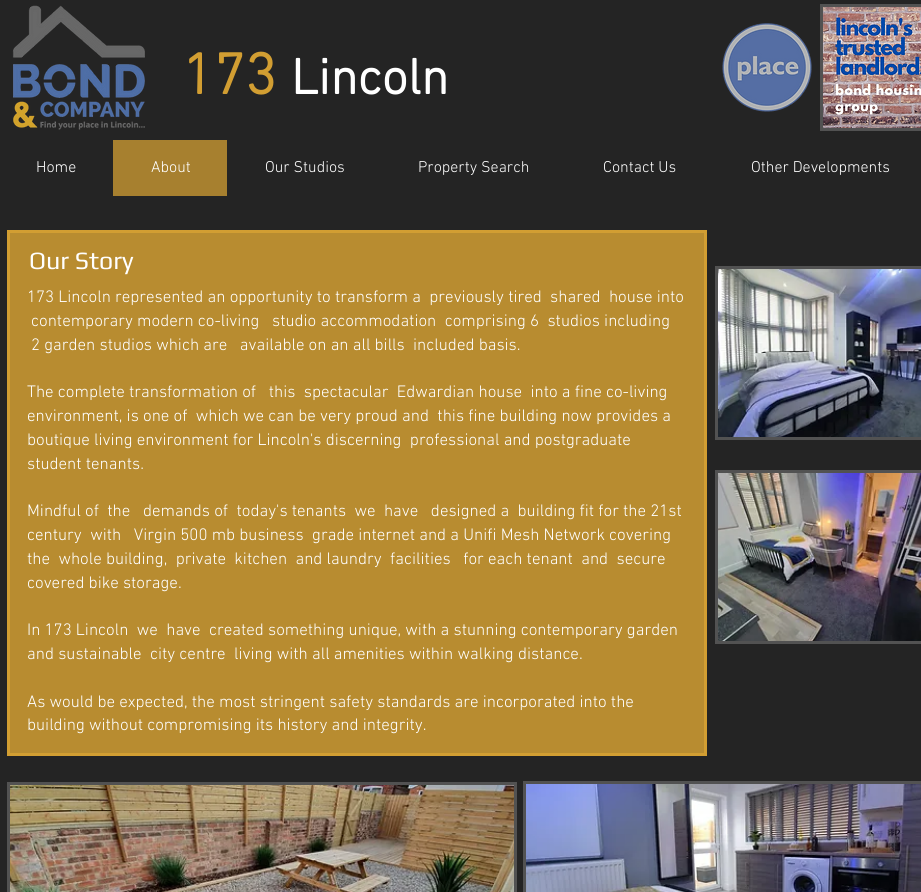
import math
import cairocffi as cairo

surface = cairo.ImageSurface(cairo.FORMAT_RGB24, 921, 892)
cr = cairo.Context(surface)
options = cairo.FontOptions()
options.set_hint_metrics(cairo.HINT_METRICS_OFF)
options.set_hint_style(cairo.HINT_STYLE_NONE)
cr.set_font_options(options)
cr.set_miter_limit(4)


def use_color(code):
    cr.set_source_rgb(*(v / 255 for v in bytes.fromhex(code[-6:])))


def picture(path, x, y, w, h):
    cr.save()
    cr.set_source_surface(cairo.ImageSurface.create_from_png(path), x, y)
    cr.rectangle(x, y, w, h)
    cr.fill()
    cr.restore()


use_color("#242424")
cr.paint()
picture("img1.png", 12, 5, 133, 125)
cr.select_font_face("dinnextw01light", cairo.FONT_SLANT_NORMAL, cairo.FONT_WEIGHT_BOLD)
cr.set_font_size(59)
use_color("#d29e32")
cr.move_to(182, 94)
cr.show_text("173")
cr.set_font_size(51)
use_color("#ffffff")
cr.move_to(291, 94)
cr.show_text("Lincoln")
picture("img2.png", 722, 23, 90, 89)
cr.rectangle(821.5, 5.5, 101, 124)
use_color("#525252")
cr.set_line_width(3)
cr.stroke()
picture("img3.png", 823, 7, 98, 121)
cr.select_font_face("dinnextw01light Light")
cr.set_font_size(16)
use_color("#ffffff")
cr.move_to(36, 172)
cr.show_text("Home")
use_color("#a7802f")
cr.rectangle(113, 140, 114, 56)
cr.fill()
use_color("#ffffff")
cr.move_to(151, 172)
cr.show_text("About")
cr.move_to(265, 172)
cr.show_text("Our Studios")
cr.move_to(418, 172)
cr.show_text("Property Search")
cr.move_to(603, 172)
cr.show_text("Contact Us")
cr.move_to(751, 172)
cr.show_text("Other Developments")
use_color("#b88c30")
cr.rectangle(8.5, 231.5, 697, 523)
cr.fill_preserve()
use_color("#d29e32")
cr.stroke()
cr.select_font_face("Play")
cr.set_font_size(25)
use_color("#ffffff")
cr.move_to(29, 269)
cr.show_text("Our Story")
cr.select_font_face("dinnextw01light Light")
cr.set_font_size(17)
cr.move_to(27, 302)
cr.show_text("173 Lincoln represented an opportunity to transform a  previously tired  shared  house into")
cr.move_to(31, 326)
cr.show_text("contemporary modern co-living   studio accommodation  comprising 6  studios including")
cr.move_to(31, 350)
cr.show_text("2 garden studios which are   available on an all bills  included basis.")
cr.move_to(27, 397)
cr.show_text("The complete transformation of   this  spectacular  Edwardian house  into a fine co-living")
cr.move_to(27, 421)
cr.show_text("environment, is one of  which we can be very proud and  this fine building now provides a")
cr.move_to(27, 445)
cr.show_text("boutique living environment for Lincoln's discerning  professional and postgraduate")
cr.move_to(27, 469)
cr.show_text("student tenants.")
cr.move_to(27, 516)
cr.show_text("Mindful of  the   demands of  today's tenants  we  have   designed a  building fit for the 21st")
cr.move_to(27, 540)
cr.show_text("century  with   Virgin 500 mb business  grade internet and a Unifi Mesh Network covering")
cr.move_to(27, 564)
cr.show_text("the  whole building,  private  kitchen  and laundry  facilities   for each tenant  and  secure")
cr.move_to(27, 588)
cr.show_text("covered bike storage.")
cr.move_to(27, 635)
cr.show_text("In 173 Lincoln  we  have  created something unique, with a stunning contemporary garden")
cr.move_to(27, 659)
cr.show_text("and sustainable  city centre  living with all amenities within walking distance.")
cr.move_to(27, 707)
cr.show_text("As would be expected, the most stringent safety standards are incorporated into the")
cr.move_to(27, 730)
cr.show_text("building without compromising its history and integrity.")
cr.rectangle(716.5, 267.5, 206, 171)
use_color("#525252")
cr.stroke()
picture("img4.png", 718, 269, 203, 168)
cr.rectangle(716.5, 471.5, 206, 171)
cr.stroke()
picture("img5.png", 718, 473, 203, 168)
cr.rectangle(8.5, 783.5, 507, 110)
cr.stroke()
picture("img6.png", 10, 785, 504, 107)
cr.rectangle(524.5, 782.5, 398, 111)
cr.stroke()
picture("img7.png", 526, 784, 395, 108)
surface.write_to_png("result.png")
